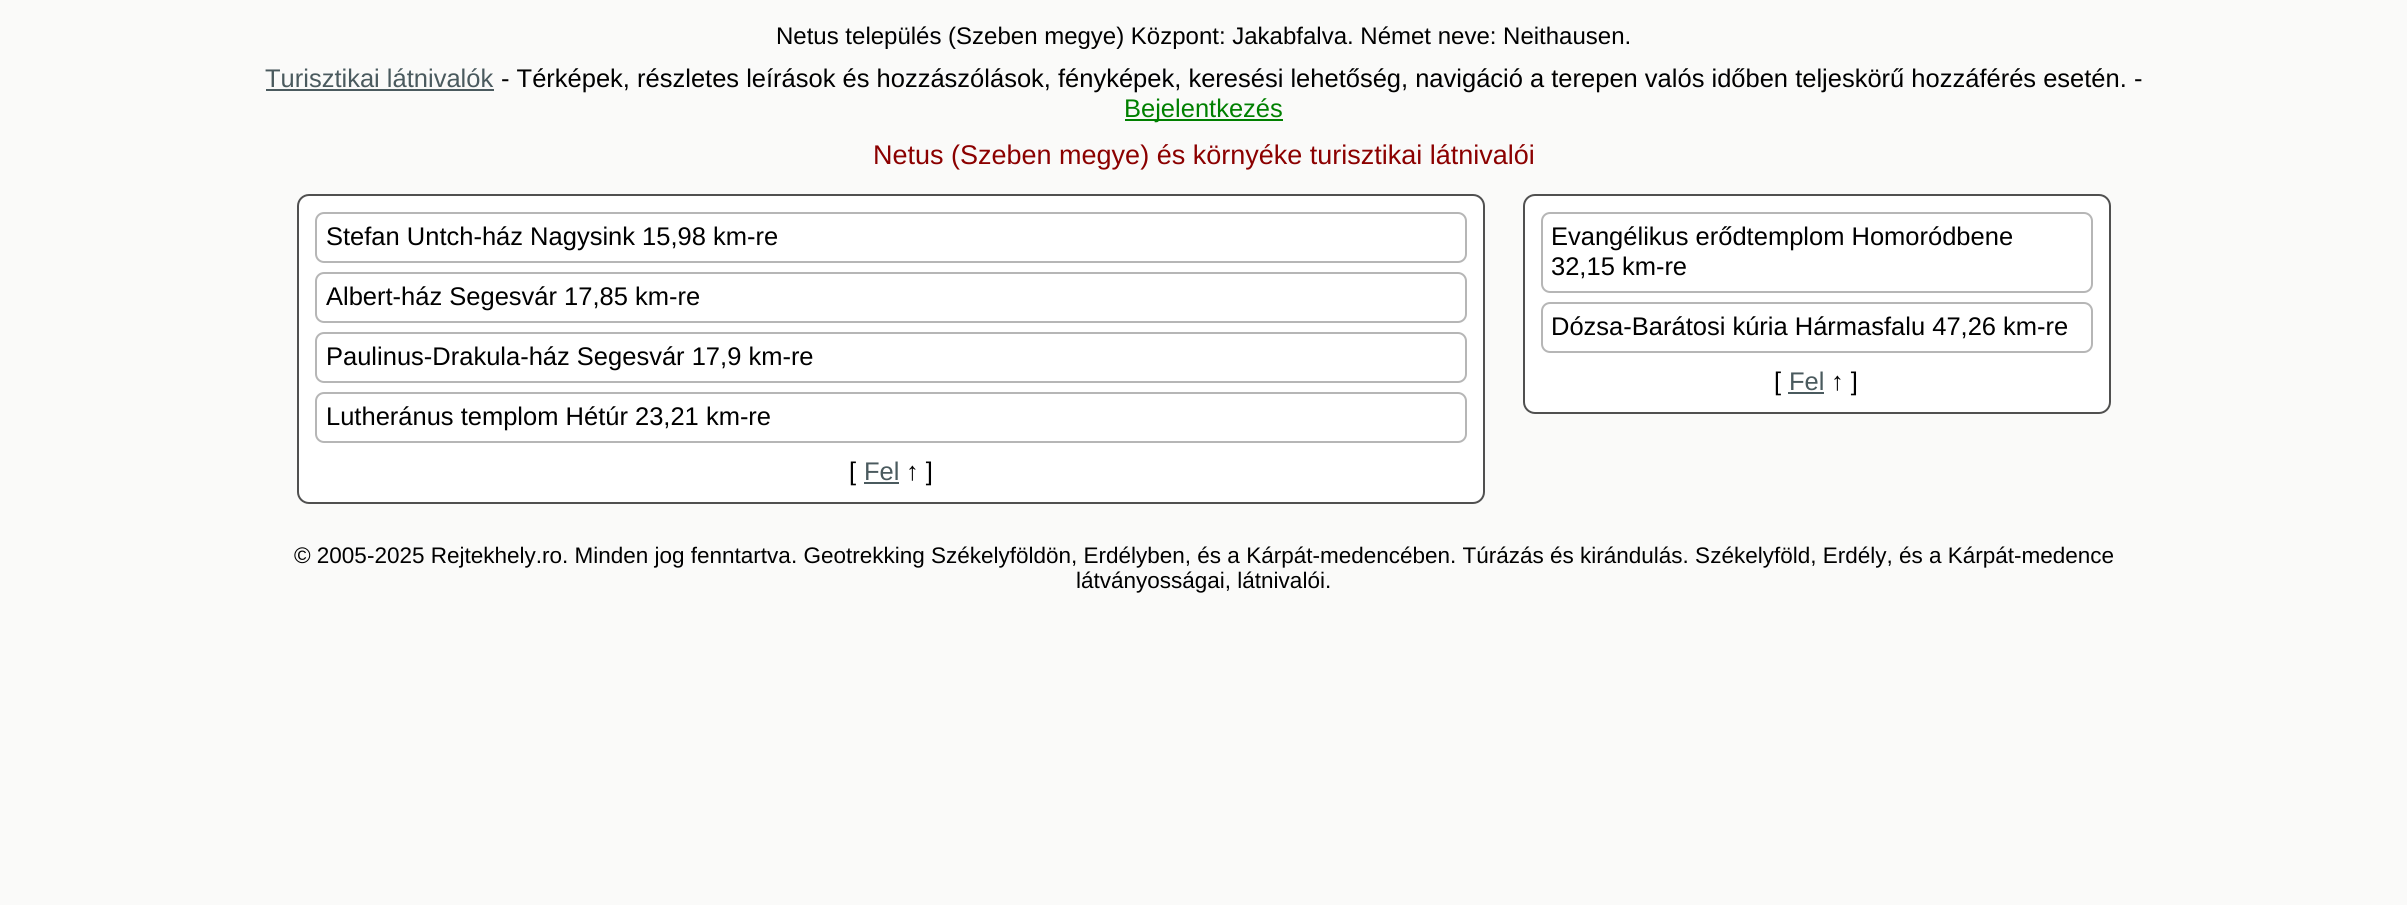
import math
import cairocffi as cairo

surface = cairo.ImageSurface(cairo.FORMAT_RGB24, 2407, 905)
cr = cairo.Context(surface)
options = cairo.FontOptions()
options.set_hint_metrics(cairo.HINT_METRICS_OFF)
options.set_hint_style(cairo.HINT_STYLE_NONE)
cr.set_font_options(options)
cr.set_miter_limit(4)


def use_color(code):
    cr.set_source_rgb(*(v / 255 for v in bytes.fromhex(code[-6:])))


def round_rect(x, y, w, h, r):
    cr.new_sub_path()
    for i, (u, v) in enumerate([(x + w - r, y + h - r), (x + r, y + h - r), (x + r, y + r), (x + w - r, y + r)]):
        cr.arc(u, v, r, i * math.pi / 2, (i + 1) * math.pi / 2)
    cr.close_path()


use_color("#fafaf9")
cr.paint()
cr.select_font_face("Liberation Sans")
cr.set_font_size(24)
use_color("#000000")
cr.move_to(776, 44)
cr.show_text("Netus település (Szeben megye) Központ: Jakabfalva. Német neve: Neithausen.")
cr.set_font_size(25.5)
use_color("#4a5a5e")
cr.move_to(265, 87)
cr.show_text("Turisztikai látnivalók")
cr.rectangle(266, 89, 228, 2)
cr.fill()
use_color("#000000")
cr.move_to(501, 87)
cr.show_text("- Térképek, részletes leírások és hozzászólások, fényképek, keresési lehetőség, navigáció a terepen valós időben teljeskörű hozzáférés esetén. -")
use_color("#008000")
cr.rectangle(1125, 119, 158, 2)
cr.fill()
cr.move_to(1124, 117)
cr.show_text("Bejelentkezés")
cr.set_font_size(27)
use_color("#8b0000")
cr.move_to(873, 164)
cr.show_text("Netus (Szeben megye) és környéke turisztikai látnivalói")
use_color("#ffffff")
round_rect(298, 195, 1186, 308, 11)
cr.fill_preserve()
use_color("#505050")
cr.stroke()
round_rect(316, 213, 1150, 49, 8)
use_color("#b6b6b6")
cr.stroke()
cr.set_font_size(25.5)
use_color("#000000")
cr.move_to(326, 245)
cr.show_text("Stefan Untch-ház Nagysink 15,98 km-re")
round_rect(316, 273, 1150, 49, 8)
use_color("#b6b6b6")
cr.stroke()
use_color("#000000")
cr.move_to(326, 305)
cr.show_text("Albert-ház Segesvár 17,85 km-re")
round_rect(316, 333, 1150, 49, 8)
use_color("#b6b6b6")
cr.stroke()
use_color("#000000")
cr.move_to(326, 365)
cr.show_text("Paulinus-Drakula-ház Segesvár 17,9 km-re")
round_rect(316, 393, 1150, 49, 8)
use_color("#b6b6b6")
cr.stroke()
use_color("#000000")
cr.move_to(326, 425)
cr.show_text("Lutheránus templom Hétúr 23,21 km-re")
cr.move_to(849, 480)
cr.show_text("[")
use_color("#4a5a5e")
cr.move_to(864, 480)
cr.show_text("Fel")
cr.rectangle(864, 482, 35, 2)
cr.fill()
use_color("#000000")
cr.move_to(906, 480)
cr.show_text("↑ ]")
use_color("#ffffff")
round_rect(1524, 195, 586, 218, 11)
cr.fill_preserve()
use_color("#505050")
cr.stroke()
round_rect(1542, 213, 550, 79, 8)
use_color("#b6b6b6")
cr.stroke()
use_color("#000000")
cr.move_to(1551, 245)
cr.show_text("Evangélikus erődtemplom Homoródbene")
cr.move_to(1551, 275)
cr.show_text("32,15 km-re")
round_rect(1542, 303, 550, 49, 8)
use_color("#b6b6b6")
cr.stroke()
use_color("#000000")
cr.move_to(1551, 335)
cr.show_text("Dózsa-Barátosi kúria Hármasfalu 47,26 km-re")
cr.move_to(1774, 390)
cr.show_text("[")
use_color("#4a5a5e")
cr.move_to(1789, 390)
cr.show_text("Fel")
cr.rectangle(1788, 392, 36, 2)
cr.fill()
use_color("#000000")
cr.move_to(1831, 390)
cr.show_text("↑ ]")
cr.set_font_size(22.5)
cr.move_to(294, 563)
cr.show_text("© 2005-2025 Rejtekhely.ro. Minden jog fenntartva. Geotrekking Székelyföldön, Erdélyben, és a Kárpát-medencében. Túrázás és kirándulás. Székelyföld, Erdély, és a Kárpát-medence")
cr.move_to(1076, 588)
cr.show_text("látványosságai, látnivalói.")
surface.write_to_png("result.png")
